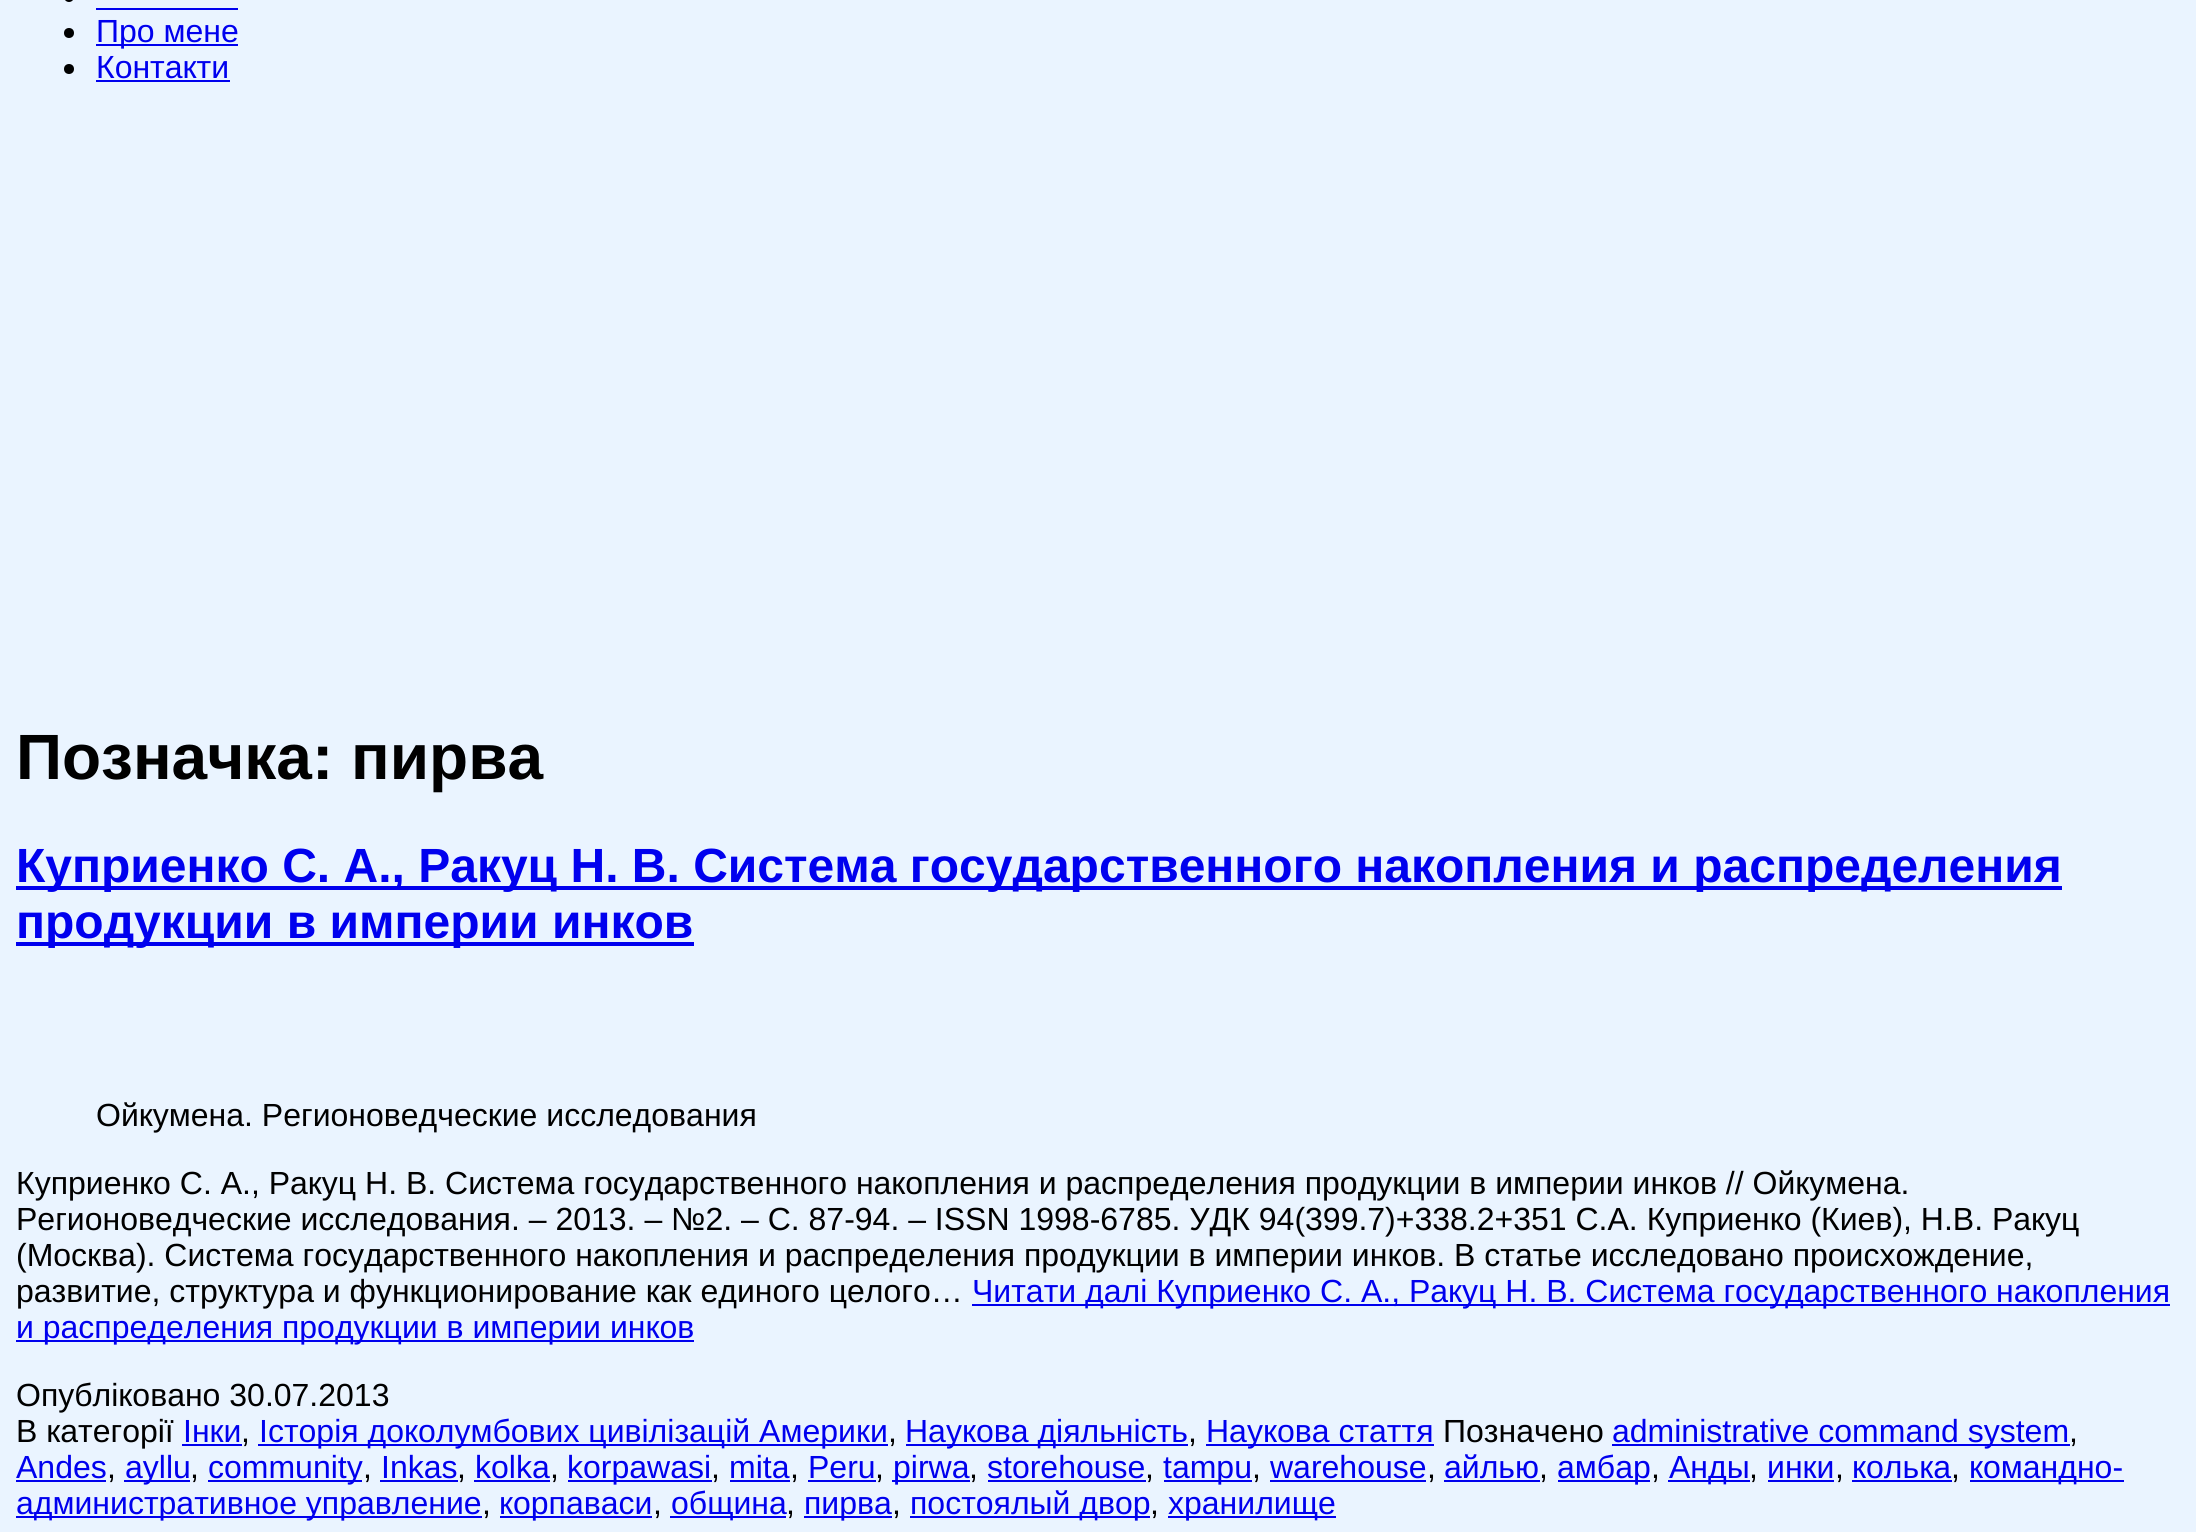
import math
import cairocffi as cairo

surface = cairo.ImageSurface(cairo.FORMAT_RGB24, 2196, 1532)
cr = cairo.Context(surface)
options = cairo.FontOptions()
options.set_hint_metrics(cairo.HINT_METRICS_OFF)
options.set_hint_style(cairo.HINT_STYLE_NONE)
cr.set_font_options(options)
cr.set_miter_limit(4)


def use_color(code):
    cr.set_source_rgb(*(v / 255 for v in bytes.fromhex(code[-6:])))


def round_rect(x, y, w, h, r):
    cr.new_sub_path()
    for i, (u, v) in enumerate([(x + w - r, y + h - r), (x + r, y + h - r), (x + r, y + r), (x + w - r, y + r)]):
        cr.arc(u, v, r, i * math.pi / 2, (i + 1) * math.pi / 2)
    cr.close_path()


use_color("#eaf4ff")
cr.paint()
use_color("#000000")
round_rect(64, -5, 10, 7, 5)
cr.fill()
use_color("#0000ee")
cr.rectangle(96, 8, 142, 2)
cr.fill()
use_color("#000000")
cr.arc(69, 33, 5, 0, 2 * math.pi)
cr.fill()
use_color("#0000ee")
cr.rectangle(96, 44, 142, 2)
cr.fill()
cr.select_font_face("Liberation Sans")
cr.set_font_size(32)
cr.move_to(96, 42)
cr.show_text("Про мене")
use_color("#000000")
cr.new_path()
cr.arc(69, 69, 5, 0, 2 * math.pi)
cr.fill()
use_color("#0000ee")
cr.move_to(96, 78)
cr.show_text("Контакти")
cr.rectangle(96, 80, 134, 2)
cr.fill()
cr.select_font_face("Liberation Sans", cairo.FONT_SLANT_NORMAL, cairo.FONT_WEIGHT_BOLD)
cr.set_font_size(64)
use_color("#000000")
cr.move_to(16, 779)
cr.show_text("Позначка: пирва")
use_color("#0000ee")
cr.rectangle(16, 886, 2046, 4)
cr.fill()
cr.set_font_size(48)
cr.move_to(16, 882)
cr.show_text("Куприенко С. А., Ракуц Н. В. Система государственного накопления и распределения")
cr.rectangle(16, 942, 678, 4)
cr.fill()
cr.move_to(16, 938)
cr.show_text("продукции в империи инков")
cr.select_font_face("Liberation Sans")
cr.set_font_size(32)
use_color("#000000")
cr.move_to(96, 1126)
cr.show_text("Ойкумена. Регионоведческие исследования")
cr.move_to(16, 1194)
cr.show_text("Куприенко С. А., Ракуц Н. В. Система государственного накопления и распределения продукции в империи инков // Ойкумена.")
cr.move_to(16, 1230)
cr.show_text("Регионоведческие исследования. – 2013. – №2. – С. 87-94. – ISSN 1998-6785. УДК 94(399.7)+338.2+351 С.А. Куприенко (Киев), Н.В. Ракуц")
cr.move_to(16, 1266)
cr.show_text("(Москва). Система государственного накопления и распределения продукции в империи инков. В статье исследовано происхождение,")
cr.move_to(16, 1302)
cr.show_text("развитие, структура и функционирование как единого целого…")
use_color("#0000ee")
cr.rectangle(972, 1304, 1198, 2)
cr.fill()
cr.move_to(972, 1302)
cr.show_text("Читати далі Куприенко С. А., Ракуц Н. В. Система государственного накопления")
cr.rectangle(16, 1340, 678, 2)
cr.fill()
cr.move_to(16, 1338)
cr.show_text("и распределения продукции в империи инков")
use_color("#000000")
cr.move_to(16, 1406)
cr.show_text("Опубліковано 30.07.2013")
cr.move_to(16, 1442)
cr.show_text("В категорії")
use_color("#0000ee")
cr.move_to(183, 1442)
cr.show_text("Інки")
use_color("#000000")
cr.move_to(241, 1442)
cr.show_text(",")
use_color("#0000ee")
cr.rectangle(182, 1444, 60, 2)
cr.fill()
cr.rectangle(258, 1444, 630, 2)
cr.fill()
cr.move_to(259, 1442)
cr.show_text("Історія доколумбових цивілізацій Америки")
use_color("#000000")
cr.move_to(888, 1442)
cr.show_text(",")
use_color("#0000ee")
cr.rectangle(906, 1444, 282, 2)
cr.fill()
cr.move_to(905, 1442)
cr.show_text("Наукова діяльність")
use_color("#000000")
cr.move_to(1188, 1442)
cr.show_text(",")
use_color("#0000ee")
cr.rectangle(1206, 1444, 228, 2)
cr.fill()
cr.move_to(1206, 1442)
cr.show_text("Наукова стаття")
use_color("#000000")
cr.move_to(1443, 1442)
cr.show_text("Позначено")
use_color("#0000ee")
cr.rectangle(1612, 1444, 458, 2)
cr.fill()
cr.move_to(1612, 1442)
cr.show_text("administrative command system")
use_color("#000000")
cr.move_to(2069, 1442)
cr.show_text(",")
use_color("#0000ee")
cr.move_to(16, 1478)
cr.show_text("Andes")
use_color("#000000")
cr.move_to(107, 1478)
cr.show_text(",")
use_color("#0000ee")
cr.rectangle(16, 1480, 90, 2)
cr.fill()
cr.rectangle(124, 1480, 66, 2)
cr.fill()
cr.move_to(125, 1478)
cr.show_text("ayllu")
use_color("#000000")
cr.move_to(190, 1478)
cr.show_text(",")
use_color("#0000ee")
cr.rectangle(208, 1480, 154, 2)
cr.fill()
cr.move_to(208, 1478)
cr.show_text("community")
use_color("#000000")
cr.move_to(363, 1478)
cr.show_text(",")
use_color("#0000ee")
cr.move_to(381, 1478)
cr.show_text("Inkas")
use_color("#000000")
cr.move_to(457, 1478)
cr.show_text(",")
use_color("#0000ee")
cr.rectangle(380, 1480, 78, 2)
cr.fill()
cr.move_to(475, 1478)
cr.show_text("kolka")
use_color("#000000")
cr.move_to(550, 1478)
cr.show_text(",")
use_color("#0000ee")
cr.rectangle(474, 1480, 76, 2)
cr.fill()
cr.rectangle(568, 1480, 144, 2)
cr.fill()
cr.move_to(567, 1478)
cr.show_text("korpawasi")
use_color("#000000")
cr.move_to(711, 1478)
cr.show_text(",")
use_color("#0000ee")
cr.move_to(729, 1478)
cr.show_text("mita")
use_color("#000000")
cr.move_to(790, 1478)
cr.show_text(",")
use_color("#0000ee")
cr.rectangle(730, 1480, 60, 2)
cr.fill()
cr.move_to(808, 1478)
cr.show_text("Peru")
use_color("#000000")
cr.move_to(875, 1478)
cr.show_text(",")
use_color("#0000ee")
cr.rectangle(808, 1480, 68, 2)
cr.fill()
cr.rectangle(892, 1480, 78, 2)
cr.fill()
cr.move_to(893, 1478)
cr.show_text("pirwa")
use_color("#000000")
cr.move_to(969, 1478)
cr.show_text(",")
use_color("#0000ee")
cr.move_to(987, 1478)
cr.show_text("storehouse")
use_color("#000000")
cr.move_to(1145, 1478)
cr.show_text(",")
use_color("#0000ee")
cr.rectangle(988, 1480, 158, 2)
cr.fill()
cr.rectangle(1164, 1480, 88, 2)
cr.fill()
cr.move_to(1163, 1478)
cr.show_text("tampu")
use_color("#000000")
cr.move_to(1252, 1478)
cr.show_text(",")
use_color("#0000ee")
cr.move_to(1270, 1478)
cr.show_text("warehouse")
use_color("#000000")
cr.move_to(1427, 1478)
cr.show_text(",")
use_color("#0000ee")
cr.rectangle(1270, 1480, 156, 2)
cr.fill()
cr.move_to(1444, 1478)
cr.show_text("айлью")
use_color("#000000")
cr.move_to(1539, 1478)
cr.show_text(",")
use_color("#0000ee")
cr.rectangle(1444, 1480, 96, 2)
cr.fill()
cr.rectangle(1558, 1480, 92, 2)
cr.fill()
cr.move_to(1557, 1478)
cr.show_text("амбар")
use_color("#000000")
cr.move_to(1651, 1478)
cr.show_text(",")
use_color("#0000ee")
cr.rectangle(1668, 1480, 82, 2)
cr.fill()
cr.move_to(1669, 1478)
cr.show_text("Анды")
use_color("#000000")
cr.move_to(1749, 1478)
cr.show_text(",")
use_color("#0000ee")
cr.move_to(1767, 1478)
cr.show_text("инки")
use_color("#000000")
cr.move_to(1835, 1478)
cr.show_text(",")
use_color("#0000ee")
cr.rectangle(1768, 1480, 66, 2)
cr.fill()
cr.move_to(1852, 1478)
cr.show_text("колька")
use_color("#000000")
cr.move_to(1951, 1478)
cr.show_text(",")
use_color("#0000ee")
cr.rectangle(1852, 1480, 100, 2)
cr.fill()
cr.rectangle(1970, 1480, 154, 2)
cr.fill()
cr.move_to(1969, 1478)
cr.show_text("командно-")
cr.rectangle(16, 1516, 466, 2)
cr.fill()
cr.move_to(16, 1514)
cr.show_text("административное управление")
use_color("#000000")
cr.move_to(482, 1514)
cr.show_text(",")
use_color("#0000ee")
cr.rectangle(500, 1516, 152, 2)
cr.fill()
cr.move_to(499, 1514)
cr.show_text("корпаваси")
use_color("#000000")
cr.move_to(653, 1514)
cr.show_text(",")
use_color("#0000ee")
cr.rectangle(670, 1516, 116, 2)
cr.fill()
cr.move_to(671, 1514)
cr.show_text("община")
use_color("#000000")
cr.move_to(786, 1514)
cr.show_text(",")
use_color("#0000ee")
cr.rectangle(804, 1516, 88, 2)
cr.fill()
cr.move_to(804, 1514)
cr.show_text("пирва")
use_color("#000000")
cr.move_to(892, 1514)
cr.show_text(",")
use_color("#0000ee")
cr.rectangle(910, 1516, 240, 2)
cr.fill()
cr.move_to(910, 1514)
cr.show_text("постоялый двор")
use_color("#000000")
cr.move_to(1150, 1514)
cr.show_text(",")
use_color("#0000ee")
cr.rectangle(1168, 1516, 168, 2)
cr.fill()
cr.move_to(1168, 1514)
cr.show_text("хранилище")
surface.write_to_png("result.png")
